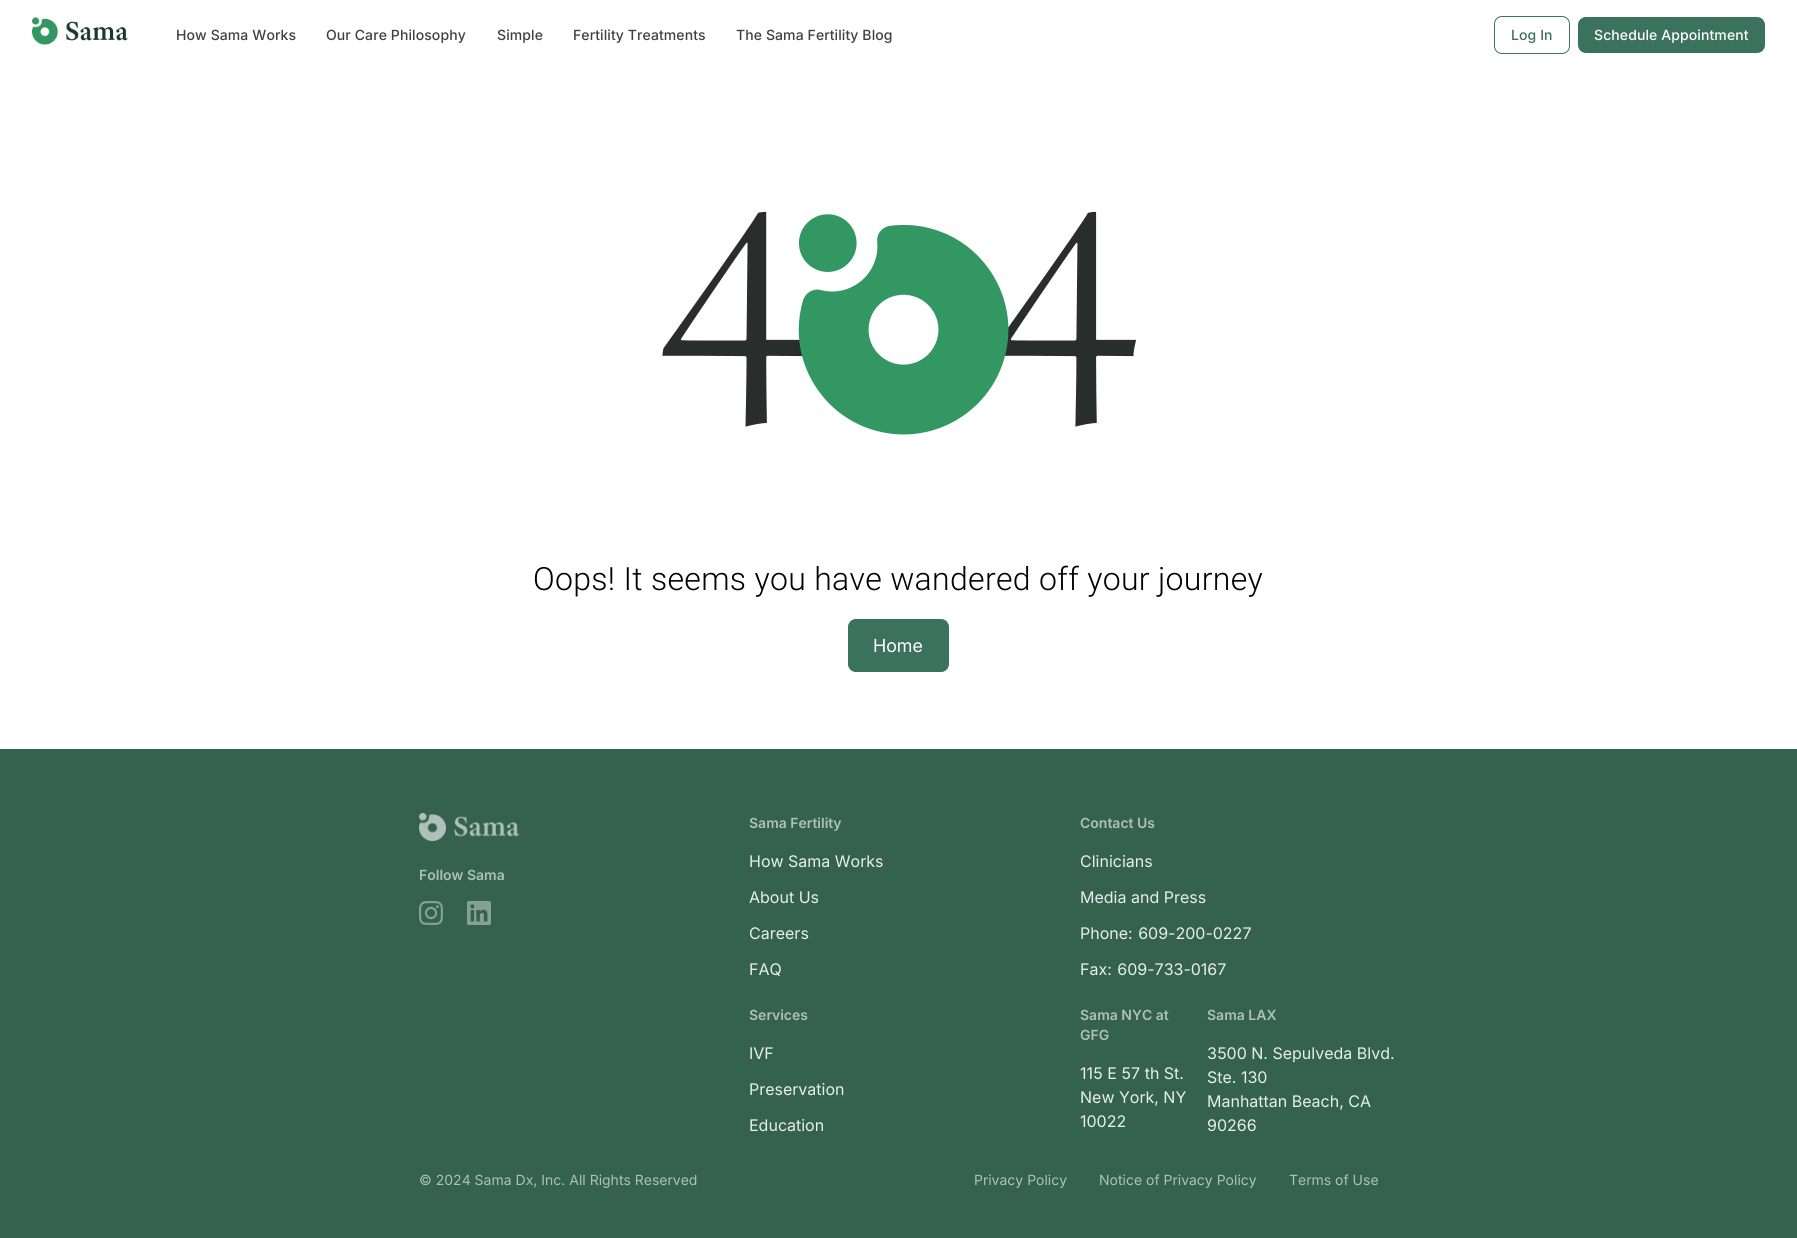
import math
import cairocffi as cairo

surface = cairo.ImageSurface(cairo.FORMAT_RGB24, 1797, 1238)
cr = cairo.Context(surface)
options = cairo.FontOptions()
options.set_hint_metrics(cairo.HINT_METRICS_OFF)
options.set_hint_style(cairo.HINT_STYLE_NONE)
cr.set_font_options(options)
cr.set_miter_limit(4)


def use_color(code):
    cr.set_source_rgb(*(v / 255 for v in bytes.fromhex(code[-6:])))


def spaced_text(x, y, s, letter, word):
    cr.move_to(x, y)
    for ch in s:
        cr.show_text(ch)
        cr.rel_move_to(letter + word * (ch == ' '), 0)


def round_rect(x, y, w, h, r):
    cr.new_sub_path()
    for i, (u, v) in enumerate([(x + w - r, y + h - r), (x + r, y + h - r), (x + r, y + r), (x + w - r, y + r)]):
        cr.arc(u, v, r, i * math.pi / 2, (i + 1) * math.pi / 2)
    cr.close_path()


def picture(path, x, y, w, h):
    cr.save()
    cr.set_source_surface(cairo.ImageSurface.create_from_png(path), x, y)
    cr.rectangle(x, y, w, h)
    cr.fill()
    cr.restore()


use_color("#ffffff")
cr.paint()
picture("img1.png", 32, 17, 96, 28)
cr.select_font_face("Inter Medium")
cr.set_font_size(14)
use_color("#3e4140")
spaced_text(176, 40, "How Sama Works", 0.1, 0)
spaced_text(326, 40, "Our Care Philosophy", 0.1, 0)
spaced_text(497, 40, "Simple", 0.1, 0)
spaced_text(573, 40, "Fertility Treatments", 0.1, 0)
spaced_text(736, 40, "The Sama Fertility Blog", 0.1, 0)
round_rect(1494.5, 16.5, 75, 37, 7.5)
use_color("#3b725c")
cr.set_line_width(1)
cr.stroke()
spaced_text(1511, 40, "Log In", 0.1, 0)
round_rect(1578, 17, 187, 36, 8)
cr.fill()
use_color("#ffffff")
spaced_text(1594, 40, "Schedule Appointment", 0.1, 0)
picture("img2.png", 662, 211, 474, 224)
cr.select_font_face("Roboto Light")
cr.set_font_size(32)
use_color("#000000")
spaced_text(533, 590, "Oops! It seems you have wandered off your journey", 0.3, 0)
use_color("#3b725c")
round_rect(848.5, 619.5, 100, 52, 7.5)
cr.fill_preserve()
cr.stroke()
cr.select_font_face("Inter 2")
cr.set_font_size(18)
use_color("#ffffff")
cr.move_to(873, 652)
cr.show_text("Home")
use_color("#34624f")
cr.rectangle(0, 749, 1797, 489)
cr.fill()
picture("img3.png", 419, 813, 100, 28)
cr.select_font_face("Inter SemiBold")
cr.set_font_size(14)
use_color("#aec0b9")
cr.move_to(419, 880)
cr.show_text("Follow Sama")
picture("img4.png", 419, 901, 24, 24)
picture("img5.png", 467, 901, 24, 24)
cr.move_to(749, 828)
cr.show_text("Sama Fertility")
cr.select_font_face("Inter")
cr.set_font_size(16)
use_color("#e9eeec")
cr.move_to(749, 867)
cr.show_text("How Sama Works")
cr.move_to(749, 903)
cr.show_text("About Us")
cr.move_to(749, 939)
cr.show_text("Careers")
cr.move_to(749, 975)
cr.show_text("FAQ")
cr.select_font_face("Inter SemiBold")
cr.set_font_size(14)
use_color("#aec0b9")
cr.move_to(749, 1020)
cr.show_text("Services")
cr.select_font_face("Inter")
cr.set_font_size(16)
use_color("#e9eeec")
cr.move_to(749, 1059)
cr.show_text("IVF")
cr.move_to(749, 1095)
cr.show_text("Preservation")
cr.move_to(749, 1131)
cr.show_text("Education")
cr.select_font_face("Inter SemiBold")
cr.set_font_size(14)
use_color("#aec0b9")
cr.move_to(1080, 828)
cr.show_text("Contact Us")
cr.select_font_face("Inter")
cr.set_font_size(16)
use_color("#e9eeec")
cr.move_to(1080, 867)
cr.show_text("Clinicians")
cr.move_to(1080, 903)
cr.show_text("Media and Press")
spaced_text(1080, 939, "Phone: 609-200-0227", 0, 1)
spaced_text(1080, 975, "Fax: 609-733-0167", 0, 1)
cr.select_font_face("Inter SemiBold")
cr.set_font_size(14)
use_color("#aec0b9")
cr.move_to(1080, 1020)
cr.show_text("Sama NYC at")
cr.move_to(1080, 1040)
cr.show_text("GFG")
cr.select_font_face("Inter")
cr.set_font_size(16)
use_color("#e9eeec")
cr.move_to(1080, 1079)
cr.show_text("115 E 57 th St.")
cr.move_to(1080, 1103)
cr.show_text("New York, NY")
cr.move_to(1080, 1127)
cr.show_text("10022")
cr.select_font_face("Inter SemiBold")
cr.set_font_size(14)
use_color("#aec0b9")
cr.move_to(1207, 1020)
cr.show_text("Sama LAX")
cr.select_font_face("Inter")
cr.set_font_size(16)
use_color("#e9eeec")
cr.move_to(1207, 1059)
cr.show_text("3500 N. Sepulveda Blvd.")
cr.move_to(1207, 1083)
cr.show_text("Ste. 130")
cr.move_to(1207, 1107)
cr.show_text("Manhattan Beach, CA")
cr.move_to(1207, 1131)
cr.show_text("90266")
cr.set_font_size(14)
use_color("#aec0b9")
cr.move_to(419, 1185)
cr.show_text("© 2024 Sama Dx, Inc. All Rights Reserved")
cr.move_to(974, 1185)
cr.show_text("Privacy Policy")
cr.move_to(1099, 1185)
cr.show_text("Notice of Privacy Policy")
cr.move_to(1289, 1185)
cr.show_text("Terms of Use")
surface.write_to_png("result.png")
